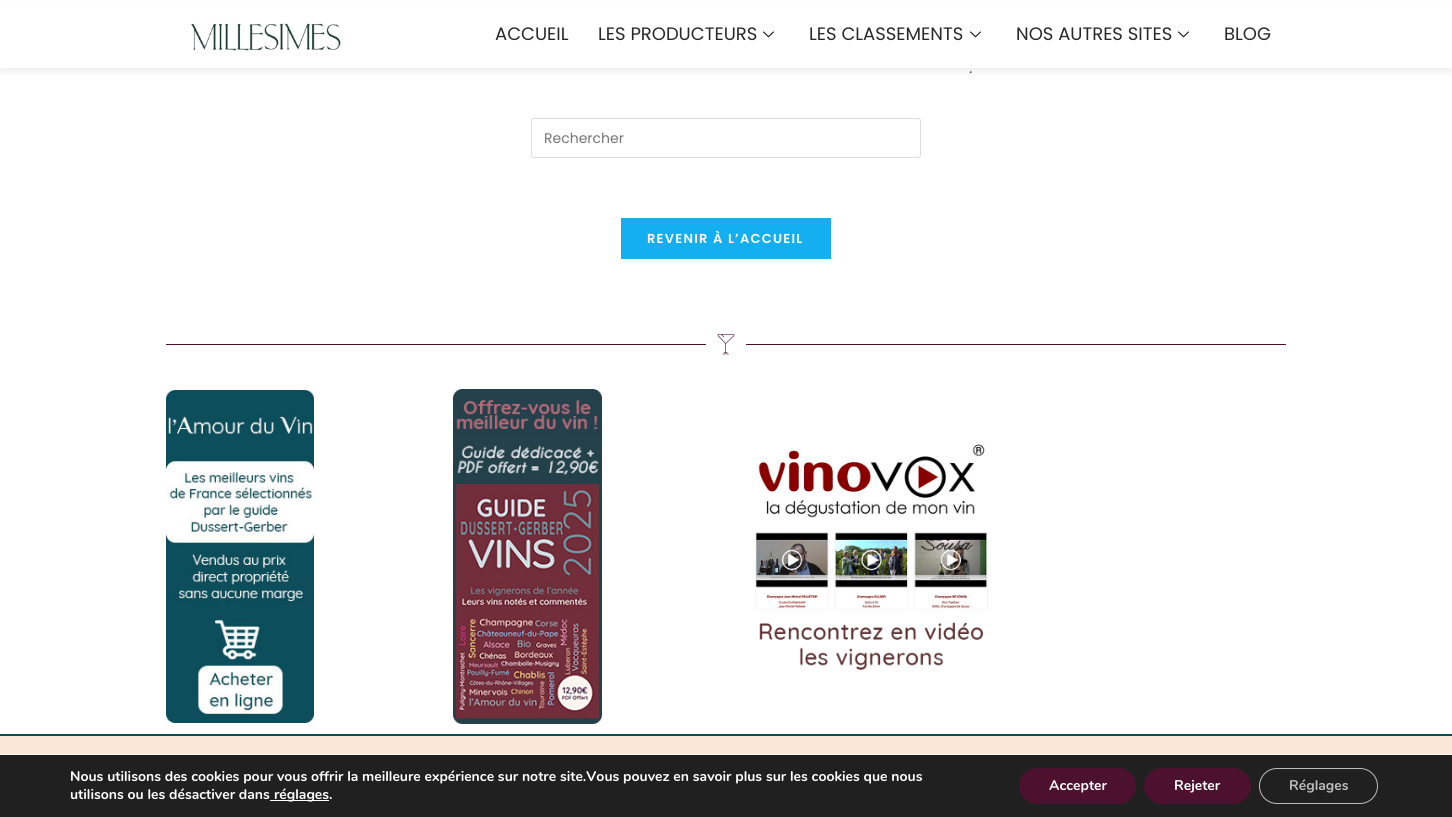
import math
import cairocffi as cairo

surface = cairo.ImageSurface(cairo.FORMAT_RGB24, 1452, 817)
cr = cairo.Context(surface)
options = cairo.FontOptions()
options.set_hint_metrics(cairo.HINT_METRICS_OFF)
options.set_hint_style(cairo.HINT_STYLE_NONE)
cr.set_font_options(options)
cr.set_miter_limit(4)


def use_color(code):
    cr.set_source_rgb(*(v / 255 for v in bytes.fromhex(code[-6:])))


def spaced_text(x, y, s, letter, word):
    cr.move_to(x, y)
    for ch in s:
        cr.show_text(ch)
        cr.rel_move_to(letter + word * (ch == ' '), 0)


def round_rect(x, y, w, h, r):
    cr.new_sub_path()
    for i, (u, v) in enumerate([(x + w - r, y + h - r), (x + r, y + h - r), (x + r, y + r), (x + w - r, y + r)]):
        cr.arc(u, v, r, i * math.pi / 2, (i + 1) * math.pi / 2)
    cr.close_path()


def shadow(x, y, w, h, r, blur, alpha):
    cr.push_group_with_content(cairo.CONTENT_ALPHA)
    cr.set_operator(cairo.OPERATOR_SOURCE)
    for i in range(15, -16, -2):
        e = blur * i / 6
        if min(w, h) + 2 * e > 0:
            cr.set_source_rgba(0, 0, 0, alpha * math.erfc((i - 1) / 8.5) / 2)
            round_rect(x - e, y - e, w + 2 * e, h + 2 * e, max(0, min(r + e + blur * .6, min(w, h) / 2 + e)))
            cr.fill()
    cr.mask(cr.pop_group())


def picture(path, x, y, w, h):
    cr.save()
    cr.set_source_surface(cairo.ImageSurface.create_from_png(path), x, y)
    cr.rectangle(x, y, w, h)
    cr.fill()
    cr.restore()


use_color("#ffffff")
cr.paint()
use_color("#eeeeee")
shadow(0, 4, 1452, 68, 0, 3, 1)
use_color("#ffffff")
cr.rectangle(0, 1, 1452, 67)
cr.fill()
picture("img1.png", 191, 23, 150, 28)
cr.select_font_face("Poppins")
cr.set_font_size(18)
use_color("#282828")
cr.move_to(495, 40)
cr.show_text("ACCUEIL")
cr.move_to(598, 40)
cr.show_text("LES PRODUCTEURS")
picture("img2.png", 763, 31, 11, 7)
cr.move_to(809, 40)
cr.show_text("LES CLASSEMENTS")
picture("img2.png", 970, 31, 11, 7)
cr.move_to(1016, 40)
cr.show_text("NOS AUTRES SITES")
picture("img2.png", 1178, 31, 11, 7)
cr.move_to(1224, 40)
cr.show_text("BLOG")
cr.select_font_face("Poppins Light")
use_color("#4a4a4a")
cr.move_to(969, 73)
cr.show_text(".")
round_rect(531.5, 118.5, 389, 39, 2.5)
use_color("#dddddd")
cr.set_line_width(1)
cr.stroke()
cr.select_font_face("Poppins")
cr.set_font_size(14)
use_color("#757575")
cr.move_to(544, 143)
cr.show_text("Rechercher")
use_color("#13aff0")
cr.rectangle(621, 218, 210, 41)
cr.fill()
cr.select_font_face("Poppins SemiBold")
cr.set_font_size(13)
use_color("#ffffff")
spaced_text(647, 243, "REVENIR À L’ACCUEIL", 1.25, 0)
use_color("#4c112f")
cr.rectangle(166, 344, 540, 1)
cr.fill()
picture("img3.png", 717, 334, 18, 21)
cr.rectangle(746, 344, 540, 1)
cr.fill()
picture("img4.png", 166, 390, 148, 333)
picture("img5.png", 453, 389, 149, 335)
picture("img6.png", 755, 444, 233, 226)
use_color("#fce6d5")
cr.rectangle(0, 736, 1452, 18)
cr.fill()
use_color("#004e5a")
cr.rectangle(0, 734, 1452, 2)
cr.fill()
use_color("#202020")
cr.rectangle(0, 755, 1452, 62)
cr.fill()
cr.select_font_face("Nunito", cairo.FONT_SLANT_NORMAL, cairo.FONT_WEIGHT_BOLD)
cr.set_font_size(14)
use_color("#ffffff")
cr.move_to(70, 781)
cr.show_text("Nous utilisons des cookies pour vous offrir la meilleure expérience sur notre site.Vous pouvez en savoir plus sur les cookies que nous")
cr.move_to(70, 799)
cr.show_text("utilisons ou les désactiver dans")
cr.rectangle(270, 800, 59, 1)
cr.fill()
cr.move_to(274, 799)
cr.show_text("réglages.")
use_color("#4c112f")
round_rect(1019, 768, 117, 36, 18)
cr.fill()
use_color("#ffffff")
cr.move_to(1049, 790)
cr.show_text("Accepter")
use_color("#4c112f")
round_rect(1144, 768, 107, 36, 18)
cr.fill()
use_color("#ffffff")
cr.move_to(1174, 790)
cr.show_text("Rejeter")
round_rect(1259.5, 768.5, 118, 35, 17.5)
use_color("#bcbcbc")
cr.stroke()
cr.move_to(1289, 790)
cr.show_text("Réglages")
surface.write_to_png("result.png")
